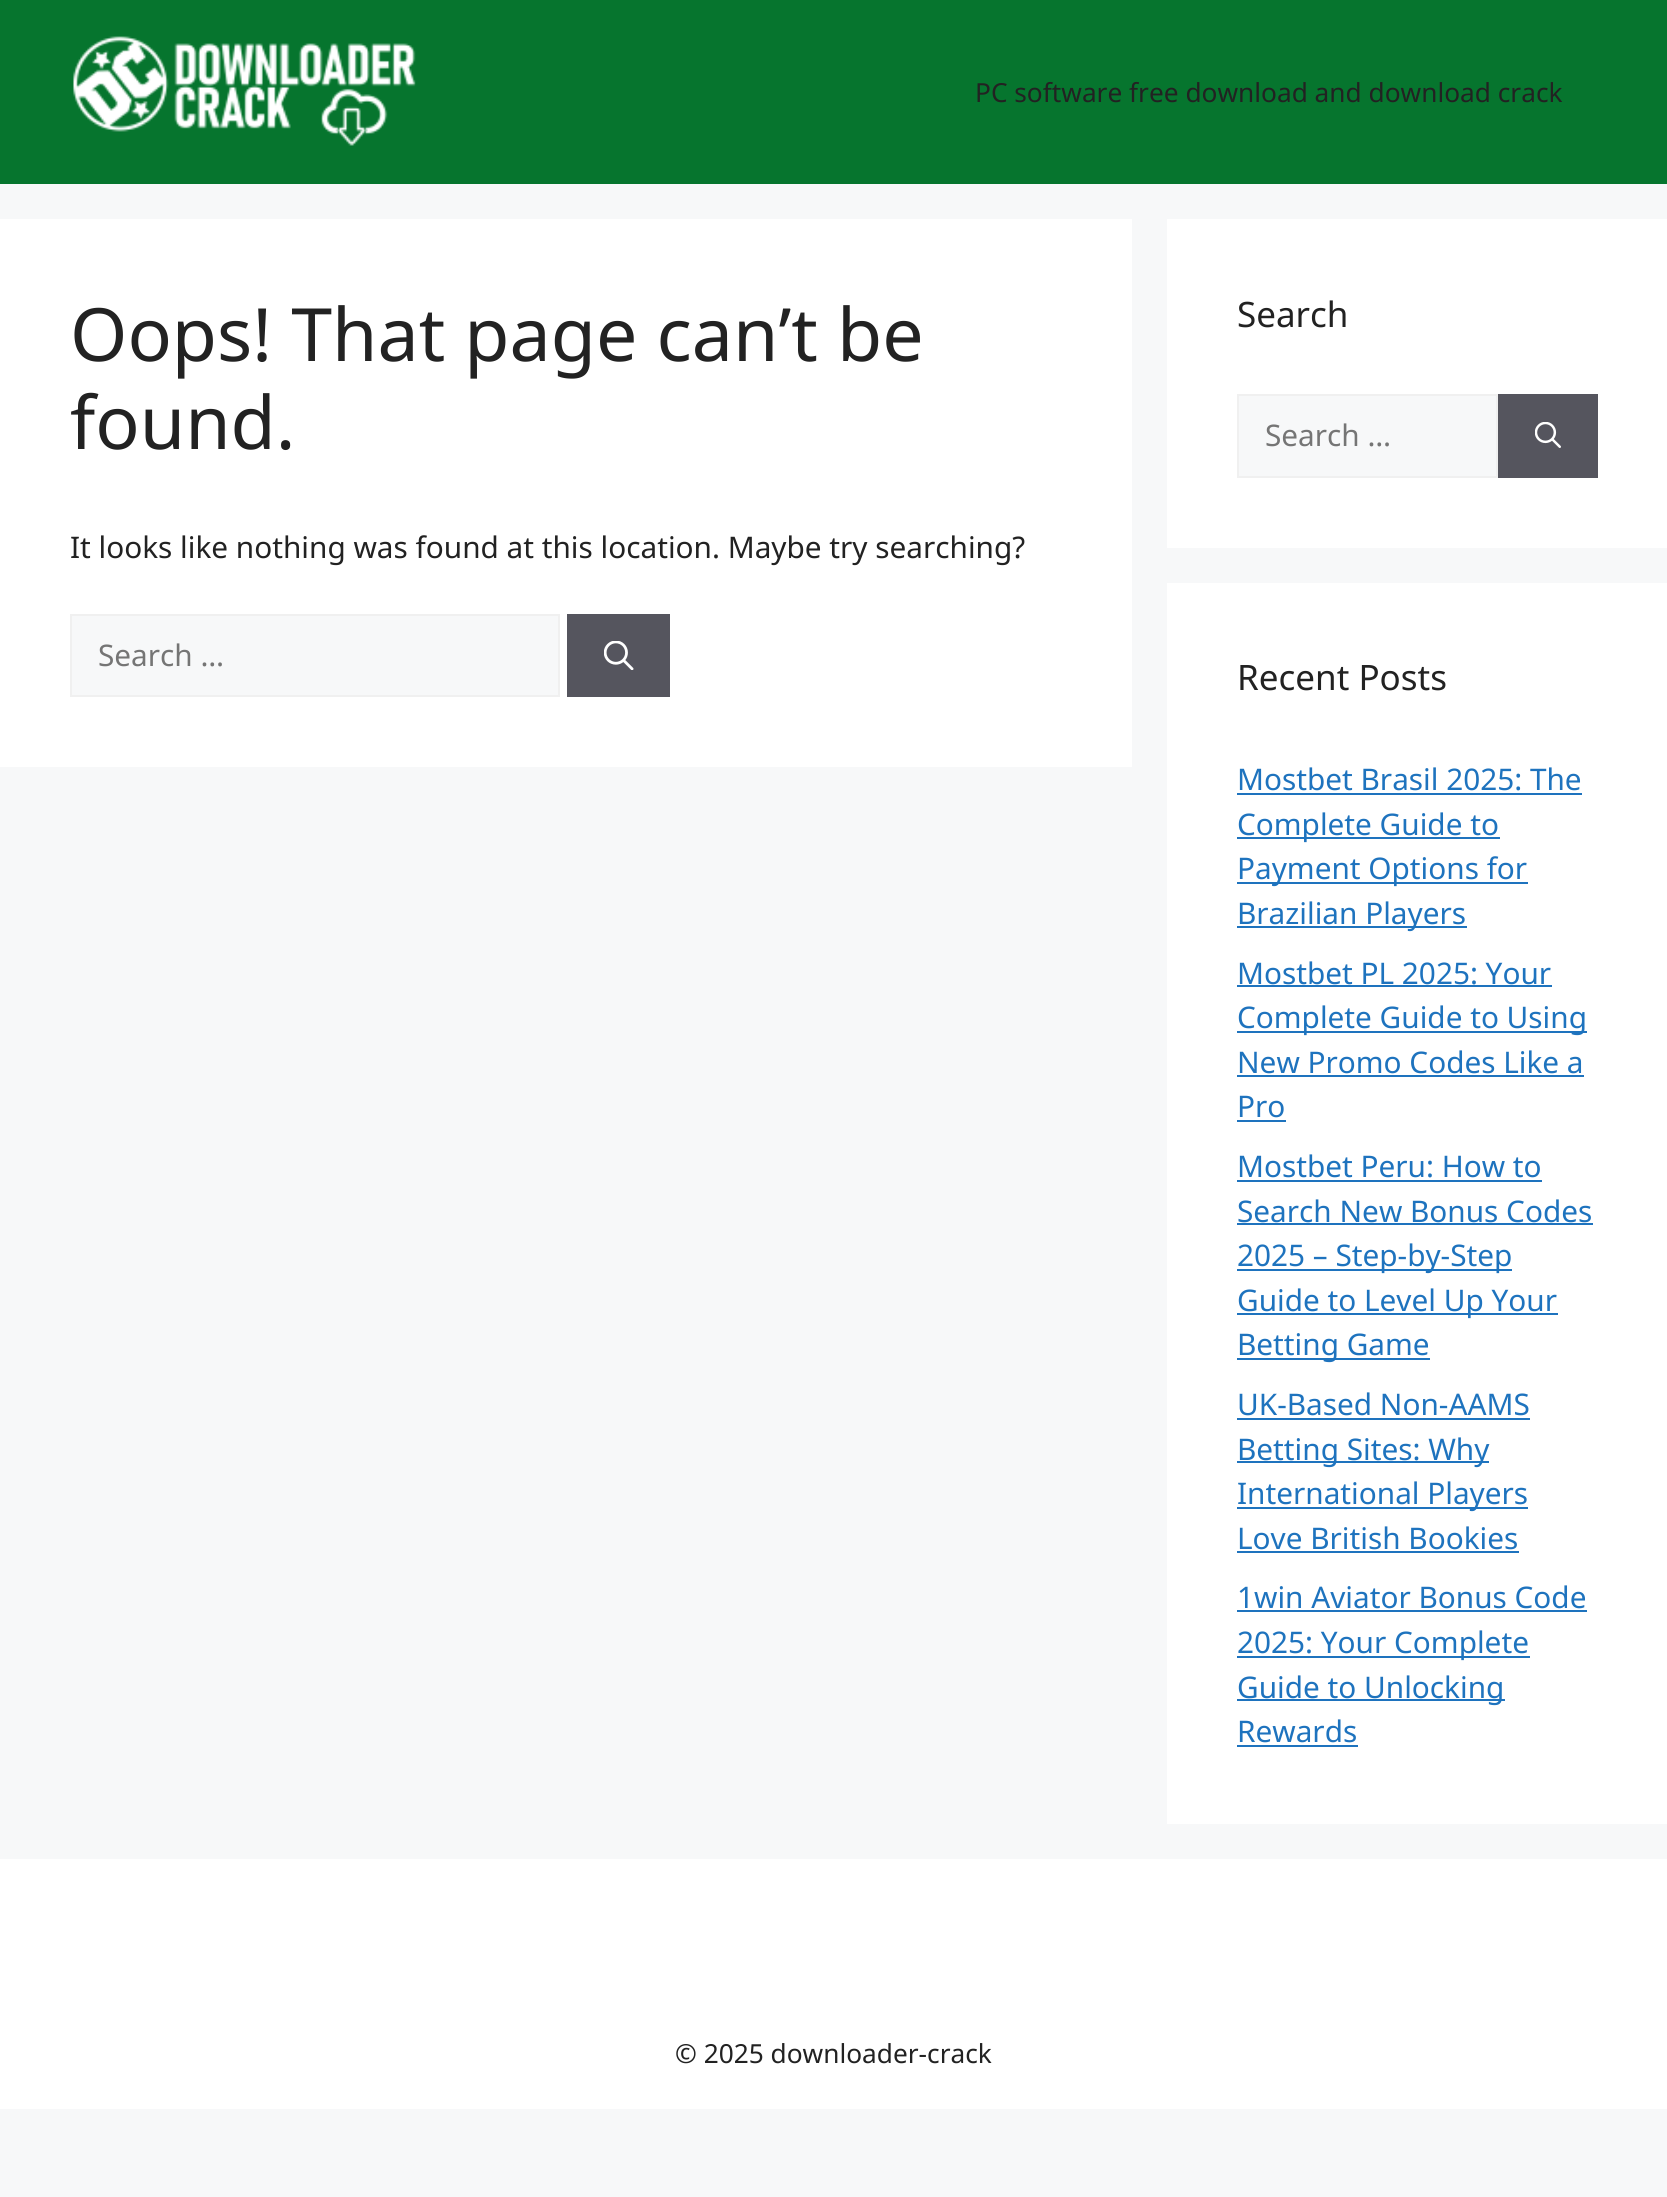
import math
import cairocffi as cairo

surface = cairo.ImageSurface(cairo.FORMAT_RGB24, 1667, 2197)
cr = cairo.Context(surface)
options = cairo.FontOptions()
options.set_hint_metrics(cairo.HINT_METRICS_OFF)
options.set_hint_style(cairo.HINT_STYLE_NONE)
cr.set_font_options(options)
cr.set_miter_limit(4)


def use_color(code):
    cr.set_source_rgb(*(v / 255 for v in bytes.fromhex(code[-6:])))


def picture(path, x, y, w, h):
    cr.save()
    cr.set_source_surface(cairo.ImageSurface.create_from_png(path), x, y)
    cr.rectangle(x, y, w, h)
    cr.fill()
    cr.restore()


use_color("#f7f8f9")
cr.paint()
use_color("#06752e")
cr.rectangle(0, 0, 1667, 184)
cr.fill()
picture("img1.png", 73, 36, 343, 110)
cr.select_font_face("Noto Sans")
cr.set_font_size(26.25)
use_color("#222222")
cr.move_to(975, 102)
cr.show_text("PC software free download and download crack")
use_color("#ffffff")
cr.rectangle(0, 219, 1132, 548)
cr.fill()
cr.set_font_size(73.5)
use_color("#222222")
cr.move_to(70, 361)
cr.show_text("Oops! That page can’t be")
cr.move_to(70, 449)
cr.show_text("found.")
cr.set_font_size(29.75)
cr.move_to(70, 558)
cr.show_text("It looks like nothing was found at this location. Maybe try searching?")
use_color("#f7f8f9")
cr.rectangle(71, 615, 488, 81)
cr.fill_preserve()
use_color("#f0f0f0")
cr.stroke()
use_color("#757575")
cr.move_to(98, 666)
cr.show_text("Search …")
use_color("#55555e")
cr.rectangle(567, 614, 103, 83)
cr.fill()
picture("img2.png", 604, 641, 30, 29)
use_color("#ffffff")
cr.rectangle(1167, 219, 500, 329)
cr.fill()
cr.set_font_size(35)
use_color("#222222")
cr.move_to(1237, 327)
cr.show_text("Search")
use_color("#f7f8f9")
cr.rectangle(1238, 395, 259, 82)
cr.fill_preserve()
use_color("#f0f0f0")
cr.stroke()
cr.set_font_size(29.75)
use_color("#757575")
cr.move_to(1265, 446)
cr.show_text("Search …")
use_color("#55555e")
cr.rectangle(1498, 394, 100, 84)
cr.fill()
picture("img3.png", 1535, 422, 26, 26)
use_color("#ffffff")
cr.rectangle(1167, 583, 500, 1241)
cr.fill()
cr.set_font_size(35)
use_color("#222222")
cr.move_to(1237, 690)
cr.show_text("Recent Posts")
cr.set_font_size(29.75)
use_color("#1e73be")
cr.move_to(1237, 790)
cr.show_text("Mostbet Brasil 2025: The")
cr.rectangle(1237, 793, 345, 2)
cr.fill()
cr.rectangle(1237, 837, 263, 2)
cr.fill()
cr.move_to(1237, 835)
cr.show_text("Complete Guide to")
cr.rectangle(1237, 882, 291, 2)
cr.fill()
cr.move_to(1237, 879)
cr.show_text("Payment Options for")
cr.rectangle(1237, 926, 230, 2)
cr.fill()
cr.move_to(1237, 924)
cr.show_text("Brazilian Players")
cr.move_to(1237, 984)
cr.show_text("Mostbet PL 2025: Your")
cr.rectangle(1237, 985, 315, 2)
cr.fill()
cr.rectangle(1237, 1031, 350, 2)
cr.fill()
cr.move_to(1237, 1028)
cr.show_text("Complete Guide to Using")
cr.move_to(1237, 1073)
cr.show_text("New Promo Codes Like a")
cr.rectangle(1237, 1075, 347, 2)
cr.fill()
cr.move_to(1237, 1117)
cr.show_text("Pro")
cr.rectangle(1237, 1120, 49, 2)
cr.fill()
cr.move_to(1237, 1177)
cr.show_text("Mostbet Peru: How to")
cr.rectangle(1237, 1180, 305, 2)
cr.fill()
cr.move_to(1237, 1222)
cr.show_text("Search New Bonus Codes")
cr.rectangle(1237, 1223, 356, 2)
cr.fill()
cr.rectangle(1237, 1269, 275, 2)
cr.fill()
cr.move_to(1237, 1266)
cr.show_text("2025 – Step-by-Step")
cr.rectangle(1237, 1313, 321, 2)
cr.fill()
cr.move_to(1237, 1311)
cr.show_text("Guide to Level Up Your")
cr.rectangle(1237, 1358, 193, 2)
cr.fill()
cr.move_to(1237, 1355)
cr.show_text("Betting Game")
cr.move_to(1237, 1415)
cr.show_text("UK-Based Non-AAMS")
cr.rectangle(1237, 1418, 293, 2)
cr.fill()
cr.rectangle(1237, 1461, 252, 2)
cr.fill()
cr.move_to(1237, 1460)
cr.show_text("Betting Sites: Why")
cr.rectangle(1237, 1507, 291, 2)
cr.fill()
cr.move_to(1237, 1504)
cr.show_text("International Players")
cr.move_to(1237, 1549)
cr.show_text("Love British Bookies")
cr.rectangle(1237, 1551, 282, 2)
cr.fill()
cr.move_to(1237, 1608)
cr.show_text("1win Aviator Bonus Code")
cr.rectangle(1237, 1610, 350, 2)
cr.fill()
cr.rectangle(1237, 1656, 293, 2)
cr.fill()
cr.move_to(1237, 1653)
cr.show_text("2025: Your Complete")
cr.rectangle(1237, 1699, 268, 2)
cr.fill()
cr.move_to(1237, 1698)
cr.show_text("Guide to Unlocking")
cr.move_to(1237, 1742)
cr.show_text("Rewards")
cr.rectangle(1237, 1745, 121, 2)
cr.fill()
use_color("#ffffff")
cr.rectangle(0, 1859, 1667, 250)
cr.fill()
cr.set_font_size(26.25)
use_color("#222222")
cr.move_to(675, 2063)
cr.show_text("© 2025 downloader-crack")
surface.write_to_png("result.png")
